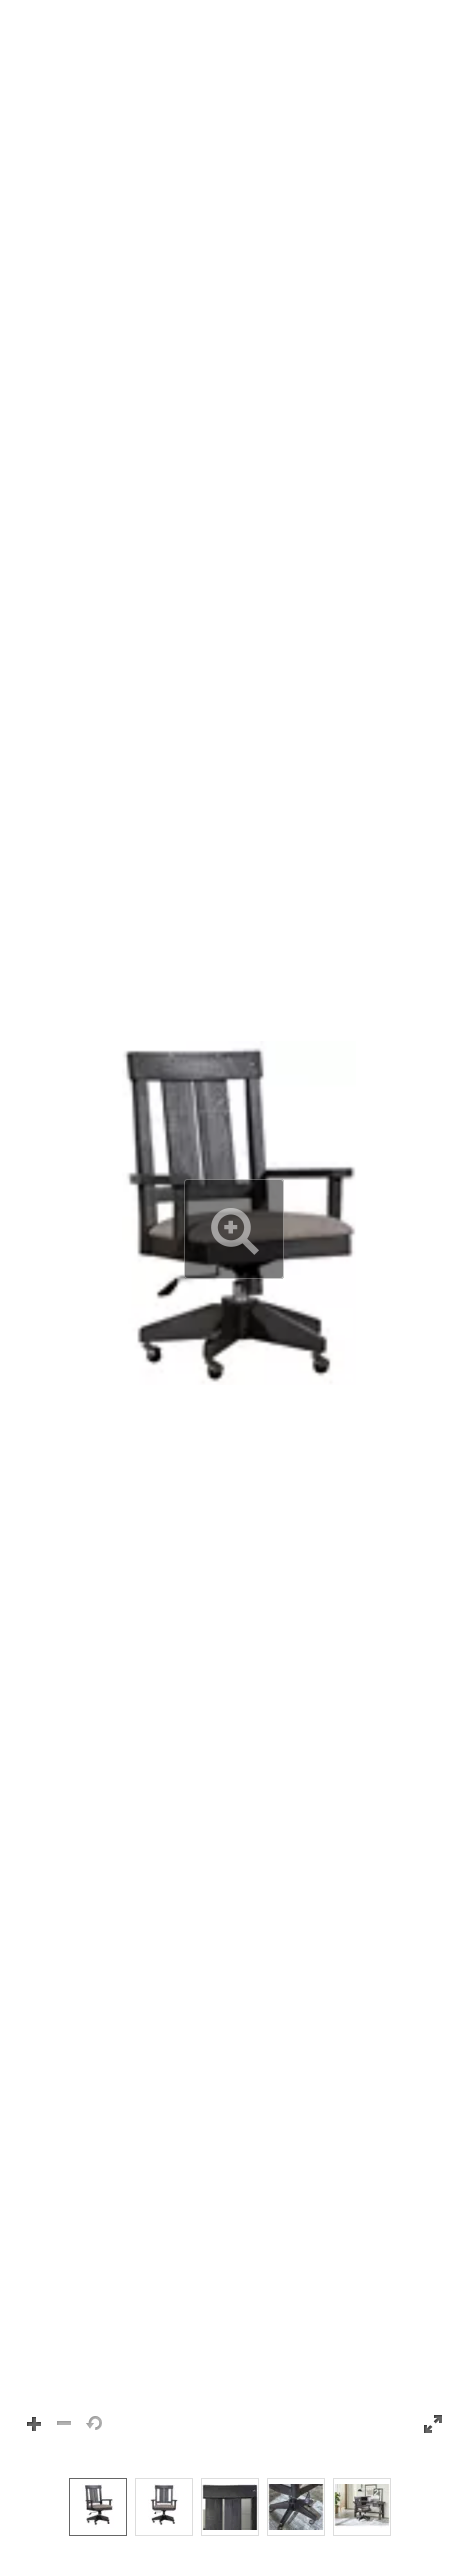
import math
import cairocffi as cairo

surface = cairo.ImageSurface(cairo.FORMAT_RGB24, 467, 2554)
cr = cairo.Context(surface)
options = cairo.FontOptions()
options.set_hint_metrics(cairo.HINT_METRICS_OFF)
options.set_hint_style(cairo.HINT_STYLE_NONE)
cr.set_font_options(options)
cr.set_miter_limit(4)


def use_color(code):
    cr.set_source_rgb(*(v / 255 for v in bytes.fromhex(code[-6:])))


def picture(path, x, y, w, h):
    cr.save()
    cr.set_source_surface(cairo.ImageSurface.create_from_png(path), x, y)
    cr.rectangle(x, y, w, h)
    cr.fill()
    cr.restore()


use_color("#ffffff")
cr.paint()
picture("img1.png", 122, 1041, 234, 344)
picture("img2.png", 184, 1179, 100, 100)
picture("img3.png", 27, 2417, 14, 14)
picture("img4.png", 57, 2421, 14, 4)
picture("img5.png", 86, 2416, 16, 14)
picture("img6.png", 424, 2415, 18, 18)
picture("img7.png", 82, 2484, 32, 44)
cr.rectangle(69.5, 2478.5, 57, 57)
use_color("#666666")
cr.set_line_width(1)
cr.stroke()
picture("img8.png", 148, 2484, 31, 42)
cr.rectangle(135.5, 2478.5, 57, 57)
use_color("#dddddd")
cr.stroke()
picture("img9.png", 202, 2484, 56, 46)
cr.rectangle(201.5, 2478.5, 57, 57)
cr.stroke()
picture("img10.png", 268, 2484, 56, 46)
cr.rectangle(267.5, 2478.5, 57, 57)
cr.stroke()
picture("img11.png", 334, 2484, 56, 44)
cr.rectangle(333.5, 2478.5, 57, 57)
cr.stroke()
surface.write_to_png("result.png")
